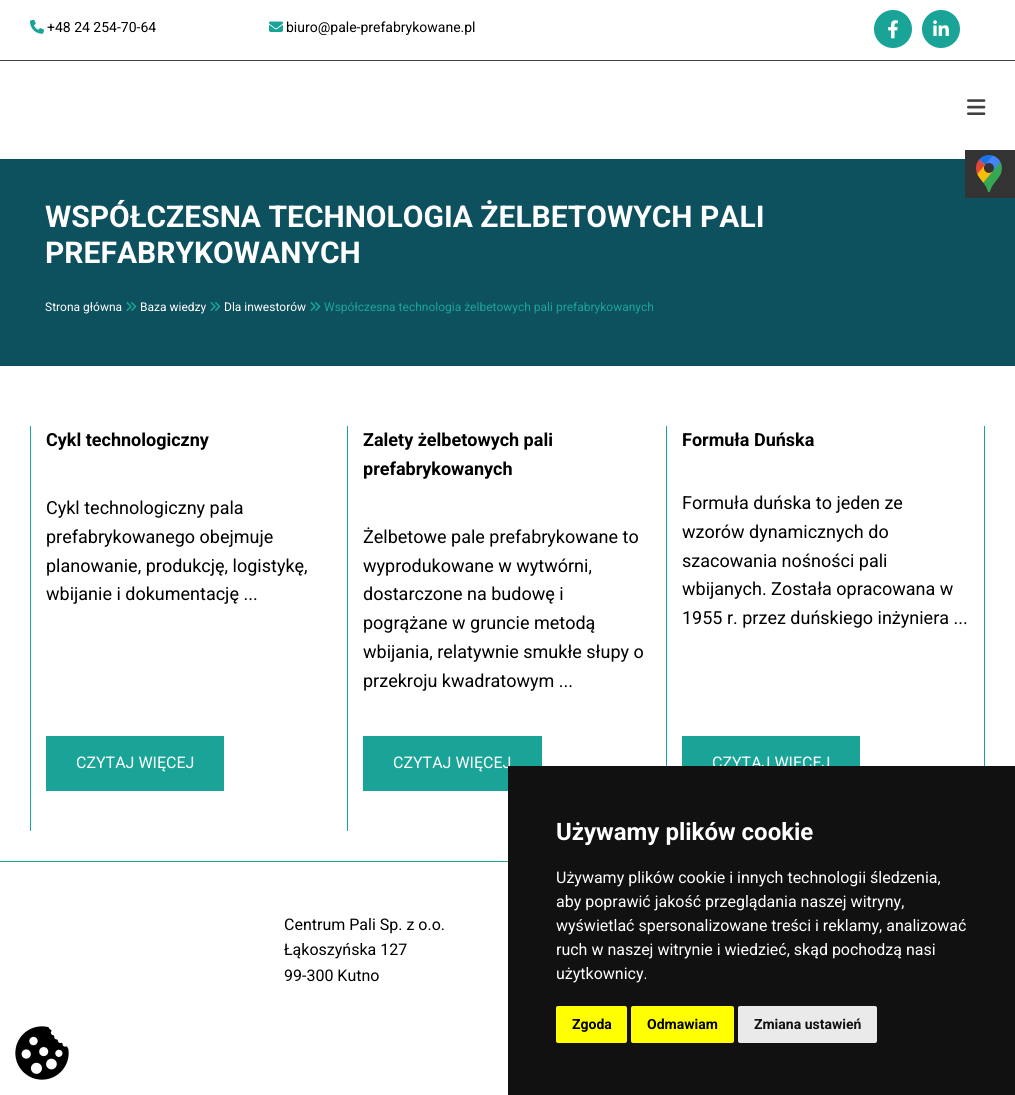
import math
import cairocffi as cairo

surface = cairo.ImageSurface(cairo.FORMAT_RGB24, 1015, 1095)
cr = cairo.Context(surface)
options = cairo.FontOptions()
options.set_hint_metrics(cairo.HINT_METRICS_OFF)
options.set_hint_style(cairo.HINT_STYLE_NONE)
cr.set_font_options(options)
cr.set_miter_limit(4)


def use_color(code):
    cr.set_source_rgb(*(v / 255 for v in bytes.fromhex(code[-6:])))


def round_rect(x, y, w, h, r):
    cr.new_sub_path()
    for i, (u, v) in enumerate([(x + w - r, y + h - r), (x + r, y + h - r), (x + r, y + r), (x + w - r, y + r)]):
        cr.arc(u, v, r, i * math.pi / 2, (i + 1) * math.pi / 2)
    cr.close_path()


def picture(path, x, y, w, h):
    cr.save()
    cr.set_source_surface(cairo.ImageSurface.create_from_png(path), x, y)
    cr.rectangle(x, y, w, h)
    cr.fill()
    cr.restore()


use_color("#ffffff")
cr.paint()
picture("img1.png", 30, 19, 14, 15)
cr.select_font_face("Roboto")
cr.set_font_size(14)
use_color("#000000")
cr.move_to(47, 32)
cr.show_text("+48 24 254-70-64")
picture("img2.png", 269, 21, 14, 11)
cr.move_to(286, 32)
cr.show_text("biuro@pale-prefabrykowane.pl")
use_color("#1aa498")
cr.new_path()
cr.arc(893, 29, 19, 0, 2 * math.pi)
cr.fill()
picture("img3.png", 888, 20, 10, 19)
cr.arc(941, 29, 19, 0, 2 * math.pi)
cr.fill()
picture("img4.png", 933, 20, 16, 16)
use_color("#404040")
cr.rectangle(0, 60, 1015, 1)
cr.fill()
picture("img5.png", 967, 99, 19, 16)
use_color("#0d505e")
cr.rectangle(0, 159, 1015, 207)
cr.fill()
cr.select_font_face("Roboto", cairo.FONT_SLANT_NORMAL, cairo.FONT_WEIGHT_BOLD)
cr.set_font_size(30)
use_color("#ffffff")
cr.move_to(45, 227)
cr.show_text("WSPÓŁCZESNA TECHNOLOGIA ŻELBETOWYCH PALI")
cr.move_to(45, 263)
cr.show_text("PREFABRYKOWANYCH")
cr.select_font_face("Roboto")
cr.set_font_size(12)
cr.move_to(45, 311)
cr.show_text("Strona główna")
picture("img6.png", 126, 302, 11, 9)
cr.move_to(140, 311)
cr.show_text("Baza wiedzy")
picture("img6.png", 210, 302, 11, 9)
cr.move_to(224, 311)
cr.show_text("Dla inwestorów")
picture("img6.png", 310, 302, 11, 9)
use_color("#1aa498")
cr.move_to(324, 311)
cr.show_text("Współczesna technologia żelbetowych pali prefabrykowanych")
cr.rectangle(347, 426, 1, 405)
cr.fill()
cr.rectangle(30, 426, 1, 405)
cr.fill()
cr.select_font_face("Roboto", cairo.FONT_SLANT_NORMAL, cairo.FONT_WEIGHT_BOLD)
cr.set_font_size(18)
use_color("#000000")
cr.move_to(46, 446)
cr.show_text("Cykl technologiczny")
cr.select_font_face("Roboto")
cr.move_to(46, 514)
cr.show_text("Cykl technologiczny pala")
cr.move_to(46, 543)
cr.show_text("prefabrykowanego obejmuje")
cr.move_to(46, 572)
cr.show_text("planowanie, produkcję, logistykę,")
cr.move_to(46, 600)
cr.show_text("wbijanie i dokumentację ...")
use_color("#1aa498")
cr.rectangle(46, 736, 178, 55)
cr.fill()
cr.set_font_size(16)
use_color("#ffffff")
cr.move_to(76, 768)
cr.show_text("CZYTAJ WIĘCEJ")
use_color("#1aa498")
cr.rectangle(666, 426, 1, 340)
cr.fill()
cr.select_font_face("Roboto", cairo.FONT_SLANT_NORMAL, cairo.FONT_WEIGHT_BOLD)
cr.set_font_size(18)
use_color("#000000")
cr.move_to(363, 446)
cr.show_text("Zalety żelbetowych pali")
cr.move_to(363, 475)
cr.show_text("prefabrykowanych")
cr.select_font_face("Roboto")
cr.move_to(363, 543)
cr.show_text("Żelbetowe pale prefabrykowane to")
cr.move_to(363, 572)
cr.show_text("wyprodukowane w wytwórni,")
cr.move_to(363, 600)
cr.show_text("dostarczone na budowę i")
cr.move_to(363, 629)
cr.show_text("pogrążane w gruncie metodą")
cr.move_to(363, 658)
cr.show_text("wbijania, relatywnie smukłe słupy o")
cr.move_to(363, 687)
cr.show_text("przekroju kwadratowym ...")
use_color("#1aa498")
cr.rectangle(363, 736, 179, 55)
cr.fill()
cr.set_font_size(16)
use_color("#ffffff")
cr.move_to(393, 768)
cr.show_text("CZYTAJ WIĘCEJ")
use_color("#1aa498")
cr.rectangle(984, 426, 1, 340)
cr.fill()
cr.select_font_face("Roboto", cairo.FONT_SLANT_NORMAL, cairo.FONT_WEIGHT_BOLD)
cr.set_font_size(18)
use_color("#000000")
cr.move_to(682, 446)
cr.show_text("Formuła Duńska")
cr.select_font_face("Roboto")
cr.move_to(682, 509)
cr.show_text("Formuła duńska to jeden ze")
cr.move_to(682, 538)
cr.show_text("wzorów dynamicznych do")
cr.move_to(682, 567)
cr.show_text("szacowania nośności pali")
cr.move_to(682, 595)
cr.show_text("wbijanych. Została opracowana w")
cr.move_to(682, 624)
cr.show_text("1955 r. przez duńskiego inżyniera ...")
use_color("#1aa498")
cr.rectangle(682, 736, 178, 30)
cr.fill()
cr.set_font_size(16)
use_color("#ffffff")
cr.move_to(712, 768)
cr.show_text("CZYTAJ WIĘCEJ")
use_color("#1aa498")
cr.rectangle(0, 861, 508, 1)
cr.fill()
use_color("#000000")
cr.move_to(284, 930)
cr.show_text("Centrum Pali Sp. z o.o.")
cr.move_to(284, 955)
cr.show_text("Łąkoszyńska 127")
cr.move_to(284, 981)
cr.show_text("99-300 Kutno")
use_color("#333333")
cr.rectangle(965, 150, 50, 48)
cr.fill()
picture("img7.png", 976, 155, 26, 38)
use_color("#111111")
cr.rectangle(508, 766, 507, 329)
cr.fill()
cr.select_font_face("Roboto", cairo.FONT_SLANT_NORMAL, cairo.FONT_WEIGHT_BOLD)
cr.set_font_size(24)
use_color("#ffffff")
cr.move_to(556, 840)
cr.show_text("Używamy plików cookie")
cr.select_font_face("Roboto")
cr.set_font_size(16)
cr.move_to(556, 883)
cr.show_text("Używamy plików cookie i innych technologii śledzenia,")
cr.move_to(556, 907)
cr.show_text("aby poprawić jakość przeglądania naszej witryny,")
cr.move_to(556, 931)
cr.show_text("wyświetlać spersonalizowane treści i reklamy, analizować")
cr.move_to(556, 955)
cr.show_text("ruch w naszej witrynie i wiedzieć, skąd pochodzą nasi")
cr.move_to(556, 979)
cr.show_text("użytkownicy.")
use_color("#ffff00")
round_rect(556, 1006, 71, 37, 2)
cr.fill()
cr.select_font_face("Roboto", cairo.FONT_SLANT_NORMAL, cairo.FONT_WEIGHT_BOLD)
cr.set_font_size(14)
use_color("#000000")
cr.move_to(572, 1029)
cr.show_text("Zgoda")
use_color("#ffff00")
round_rect(631, 1006, 103, 37, 2)
cr.fill()
use_color("#000000")
cr.move_to(647, 1029)
cr.show_text("Odmawiam")
use_color("#eaeaea")
round_rect(738, 1006, 139, 37, 2)
cr.fill()
use_color("#111111")
cr.move_to(754, 1029)
cr.show_text("Zmiana ustawień")
picture("img8.png", 15, 1026, 54, 54)
surface.write_to_png("result.png")
